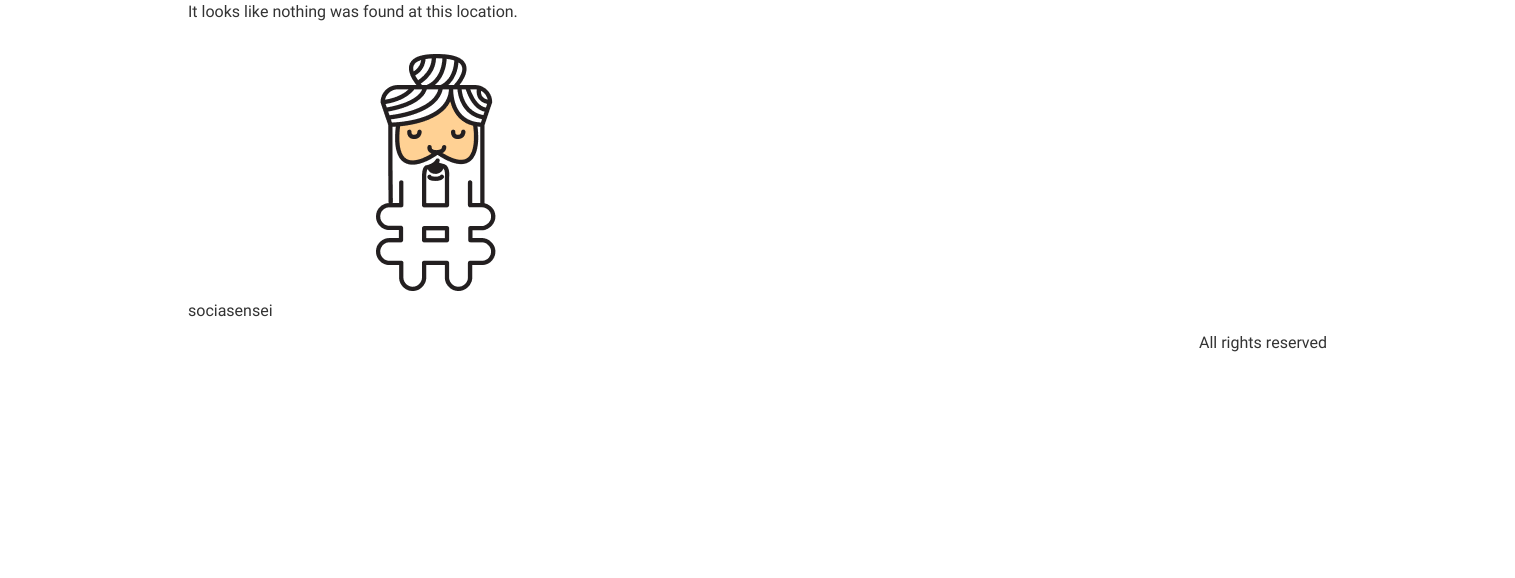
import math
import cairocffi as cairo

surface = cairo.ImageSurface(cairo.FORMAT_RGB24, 1515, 578)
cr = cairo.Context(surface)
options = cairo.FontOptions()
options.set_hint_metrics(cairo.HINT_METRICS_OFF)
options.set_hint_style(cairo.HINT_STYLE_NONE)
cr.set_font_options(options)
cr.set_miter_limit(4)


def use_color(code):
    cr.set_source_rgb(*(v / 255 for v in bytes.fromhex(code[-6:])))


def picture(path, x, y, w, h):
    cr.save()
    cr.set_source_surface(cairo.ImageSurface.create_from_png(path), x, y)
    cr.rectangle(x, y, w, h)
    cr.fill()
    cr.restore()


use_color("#ffffff")
cr.paint()
cr.select_font_face("Roboto")
cr.set_font_size(16)
use_color("#333333")
cr.move_to(188, 17)
cr.show_text("It looks like nothing was found at this location.")
picture("img1.png", 376, 54, 120, 237)
cr.move_to(188, 316)
cr.show_text("sociasensei")
cr.move_to(1199, 348)
cr.show_text("All rights reserved")
surface.write_to_png("result.png")
